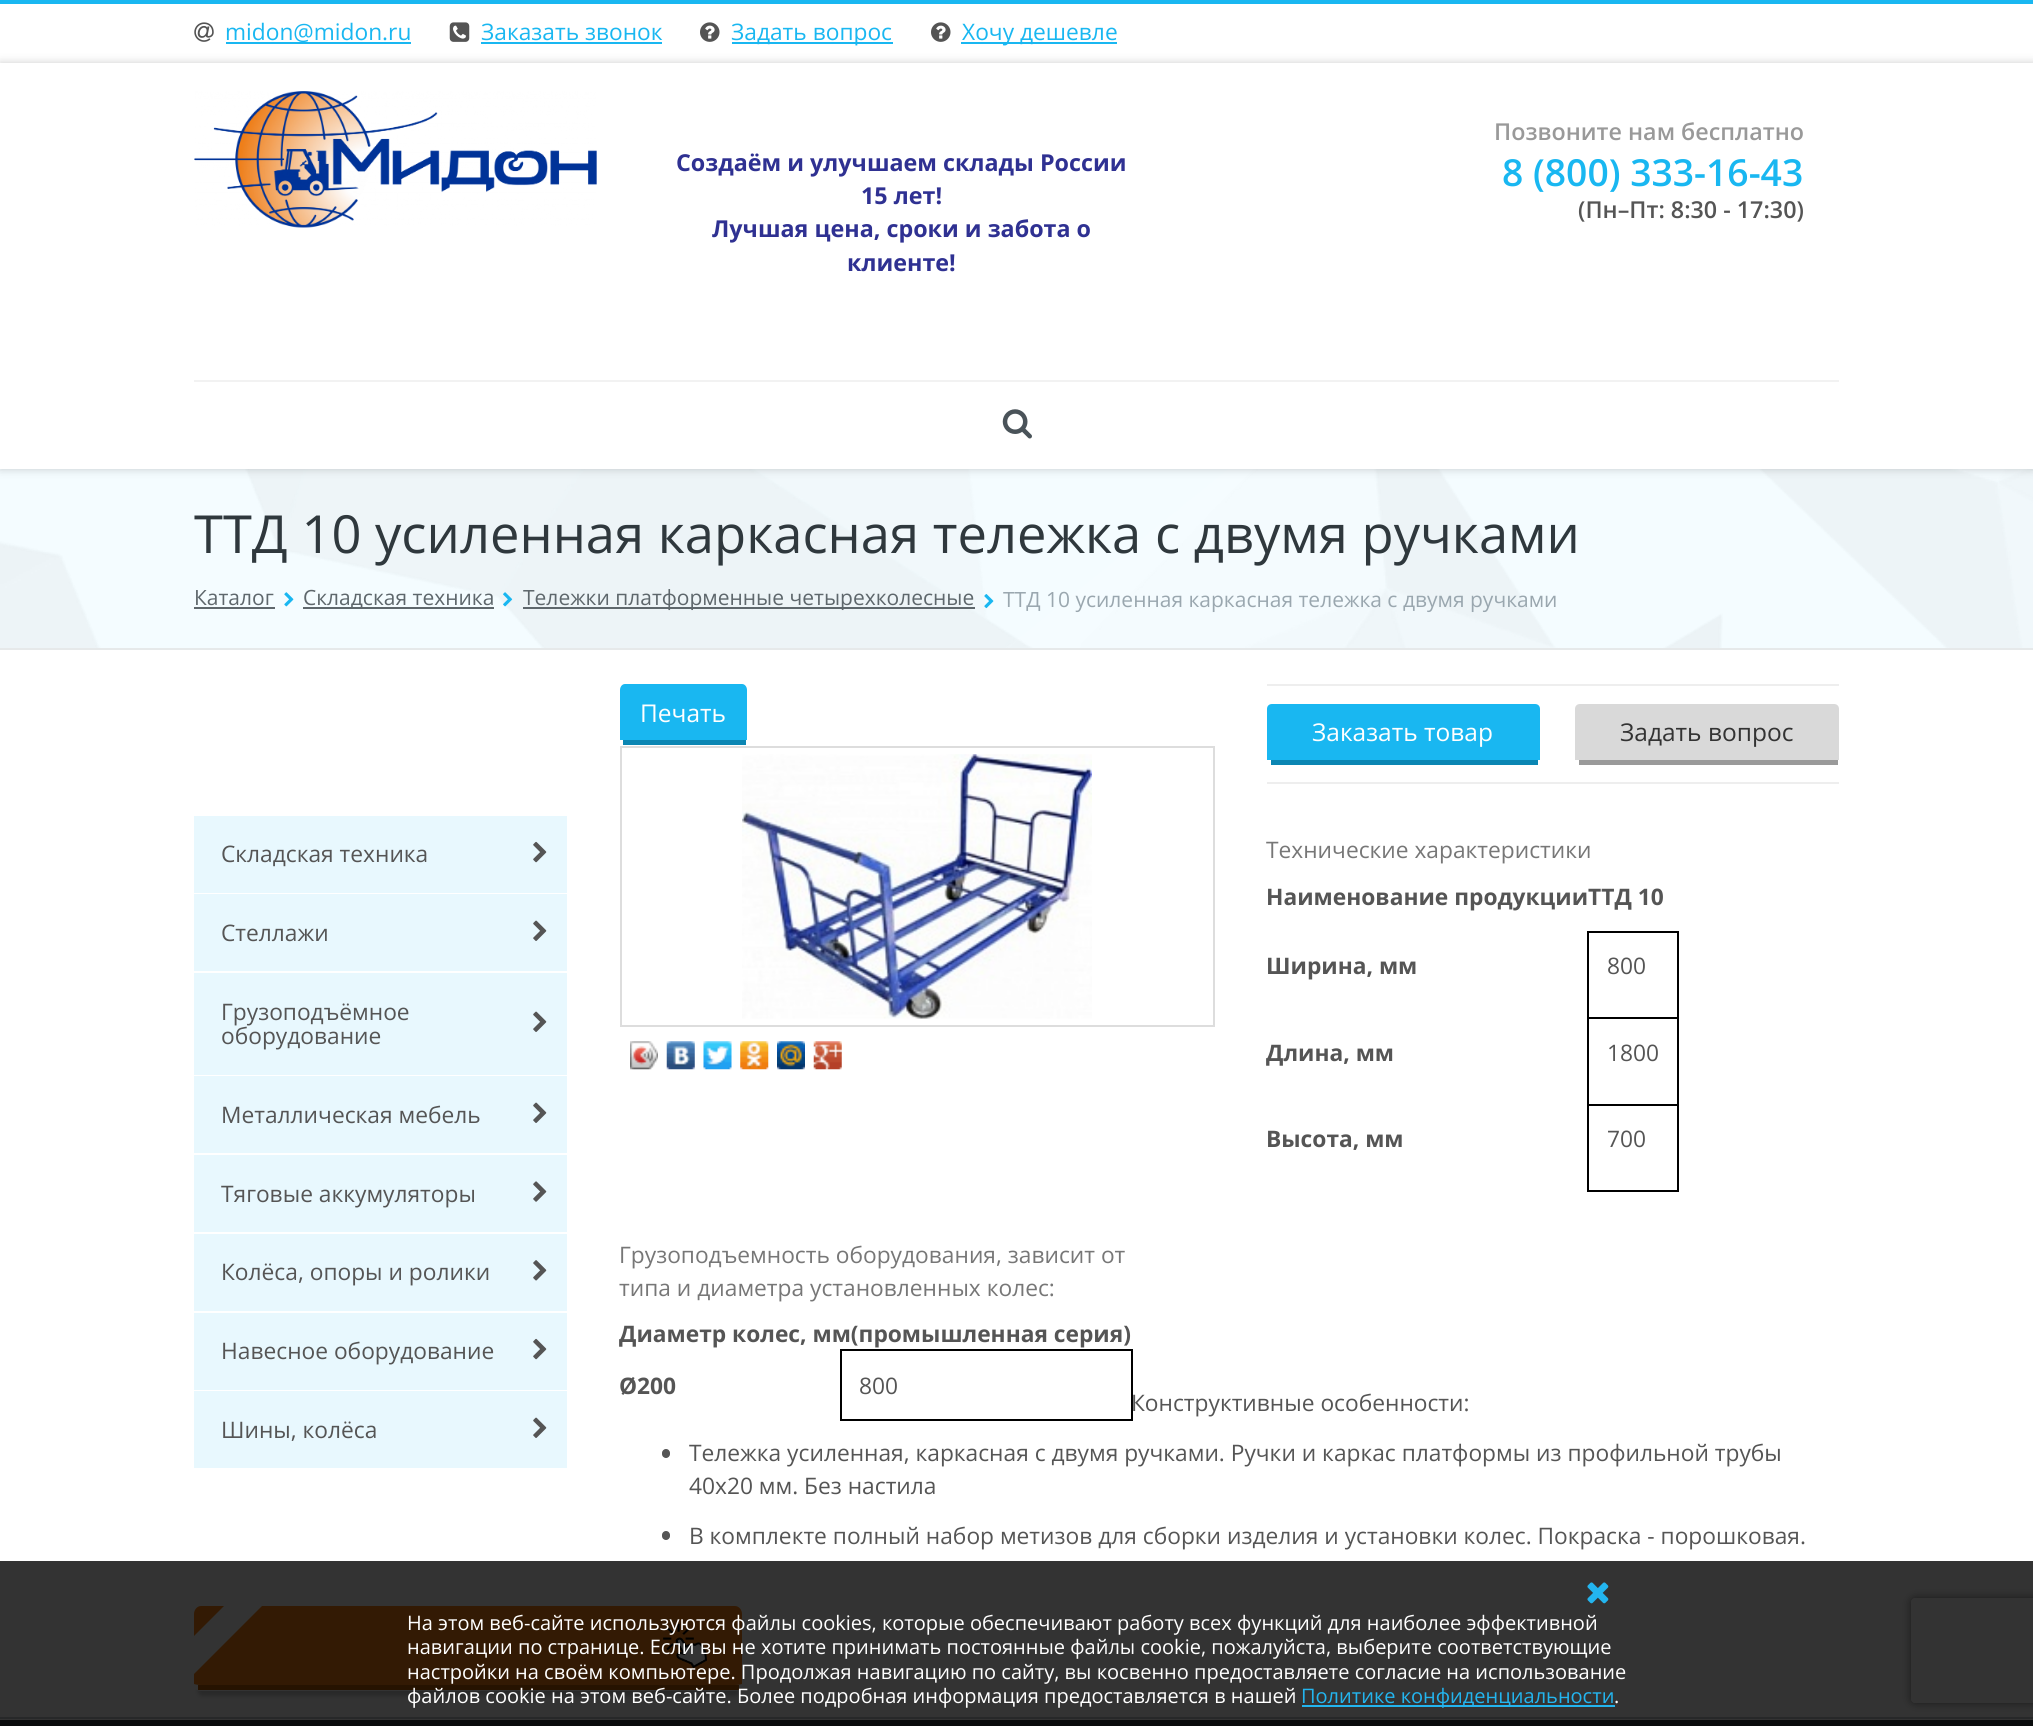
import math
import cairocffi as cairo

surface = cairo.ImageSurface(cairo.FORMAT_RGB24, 2033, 1726)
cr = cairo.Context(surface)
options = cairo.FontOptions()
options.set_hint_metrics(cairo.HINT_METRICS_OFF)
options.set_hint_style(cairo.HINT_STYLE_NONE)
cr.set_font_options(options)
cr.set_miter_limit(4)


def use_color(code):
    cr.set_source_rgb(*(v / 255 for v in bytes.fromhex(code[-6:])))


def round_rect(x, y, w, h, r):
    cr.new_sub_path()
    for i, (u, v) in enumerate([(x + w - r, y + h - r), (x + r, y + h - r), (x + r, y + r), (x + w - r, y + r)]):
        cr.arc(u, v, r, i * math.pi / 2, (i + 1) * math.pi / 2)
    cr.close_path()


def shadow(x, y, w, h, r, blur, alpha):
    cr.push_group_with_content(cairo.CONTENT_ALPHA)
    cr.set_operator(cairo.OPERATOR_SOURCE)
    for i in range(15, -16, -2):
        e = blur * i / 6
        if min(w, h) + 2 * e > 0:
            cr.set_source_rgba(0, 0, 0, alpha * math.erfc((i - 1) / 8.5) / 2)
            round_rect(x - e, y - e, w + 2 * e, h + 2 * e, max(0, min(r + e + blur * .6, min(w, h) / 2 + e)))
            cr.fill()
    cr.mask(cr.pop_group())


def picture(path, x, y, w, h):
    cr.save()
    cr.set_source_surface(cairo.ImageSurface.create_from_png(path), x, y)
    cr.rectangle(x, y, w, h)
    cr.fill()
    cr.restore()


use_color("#ffffff")
cr.paint()
use_color("#19b7f1")
cr.rectangle(0, 0, 2033, 4)
cr.fill()
picture("img1.png", 194, 22, 20, 20)
cr.rectangle(226, 42, 185, 2)
cr.fill()
cr.select_font_face("Open Sans")
cr.set_font_size(22.75)
cr.move_to(225, 40)
cr.show_text("midon@midon.ru")
picture("img2.png", 449, 22, 21, 20)
cr.move_to(481, 40)
cr.show_text("Заказать звонок")
cr.rectangle(481, 42, 181, 2)
cr.fill()
picture("img3.png", 700, 22, 20, 20)
cr.rectangle(732, 42, 161, 2)
cr.fill()
cr.move_to(731, 40)
cr.show_text("Задать вопрос")
picture("img3.png", 931, 22, 20, 20)
cr.rectangle(961, 42, 156, 2)
cr.fill()
cr.move_to(962, 40)
cr.show_text("Хочу дешевле")
use_color("#f4fcff")
cr.rectangle(0, 469, 2033, 179)
cr.fill()
picture("img6.png", 0, 469, 2033, 179)
use_color("#000000")
shadow(0, 63, 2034, 406, 0, 4.5, 0.2)
use_color("#ffffff")
cr.rectangle(0, 63, 2033, 406)
cr.fill()
picture("img4.png", 194, 91, 403, 137)
cr.select_font_face("Open Sans", cairo.FONT_SLANT_NORMAL, cairo.FONT_WEIGHT_BOLD)
cr.set_font_size(23.3)
use_color("#2f3192")
cr.move_to(676, 171)
cr.show_text("Создаём и улучшаем склады России")
cr.move_to(861, 204)
cr.show_text("15 лет!")
cr.move_to(712, 237)
cr.show_text("Лучшая цена, сроки и забота о")
cr.move_to(847, 271)
cr.show_text("клиенте!")
cr.select_font_face("Open Sans SemiBold")
use_color("#999999")
cr.move_to(1494, 140)
cr.show_text("Позвоните нам бесплатно")
cr.set_font_size(37.25)
use_color("#19b7f1")
cr.move_to(1502, 186)
cr.show_text("8 (800) 333-16-43")
cr.set_font_size(23.3)
use_color("#555555")
cr.move_to(1578, 218)
cr.show_text("(Пн–Пт: 8:30 - 17:30)")
use_color("#f2f2f2")
cr.rectangle(194, 380, 1645, 2)
cr.fill()
picture("img5.png", 1002, 409, 30, 30)
use_color("#e6e9ea")
cr.rectangle(0, 648, 2033, 2)
cr.fill()
cr.select_font_face("Open Sans")
cr.set_font_size(52.5)
use_color("#2f383d")
cr.move_to(194, 553)
cr.show_text("ТТД 10 усиленная каркасная тележка с двумя ручками")
cr.set_font_size(21)
use_color("#5e676c")
cr.move_to(194, 605)
cr.show_text("Каталог")
cr.rectangle(194, 607, 81, 2)
cr.fill()
picture("img7.png", 284, 592, 10, 15)
cr.rectangle(303, 607, 191, 2)
cr.fill()
cr.move_to(303, 605)
cr.show_text("Складская техника")
picture("img8.png", 503, 592, 10, 15)
cr.rectangle(523, 607, 452, 2)
cr.fill()
cr.move_to(523, 605)
cr.show_text("Тележки платформенные четырехколесные")
picture("img9.png", 984, 594, 10, 15)
use_color("#9aa7af")
cr.move_to(1003, 607)
cr.show_text("ТТД 10 усиленная каркасная тележка с двумя ручками")
use_color("#e8f8fe")
cr.rectangle(194, 816, 373, 77)
cr.fill()
cr.set_font_size(22.75)
use_color("#555555")
cr.move_to(221, 862)
cr.show_text("Складская техника")
picture("img10.png", 533, 841, 14, 22)
use_color("#e8f8fe")
cr.rectangle(194, 894, 373, 77)
cr.fill()
use_color("#555555")
cr.move_to(221, 941)
cr.show_text("Стеллажи")
picture("img11.png", 533, 920, 14, 21)
use_color("#e8f8fe")
cr.rectangle(194, 973, 373, 102)
cr.fill()
use_color("#555555")
cr.move_to(221, 1020)
cr.show_text("Грузоподъёмное")
picture("img11.png", 533, 1011, 14, 21)
cr.move_to(221, 1044)
cr.show_text("оборудование")
use_color("#e8f8fe")
cr.rectangle(194, 1076, 373, 77)
cr.fill()
use_color("#555555")
cr.move_to(221, 1123)
cr.show_text("Металлическая мебель")
picture("img11.png", 533, 1102, 14, 21)
use_color("#e8f8fe")
cr.rectangle(194, 1155, 373, 77)
cr.fill()
use_color("#555555")
cr.move_to(221, 1202)
cr.show_text("Тяговые аккумуляторы")
picture("img12.png", 533, 1181, 14, 21)
use_color("#e8f8fe")
cr.rectangle(194, 1234, 373, 77)
cr.fill()
use_color("#555555")
cr.move_to(221, 1280)
cr.show_text("Колёса, опоры и ролики")
picture("img13.png", 533, 1260, 14, 21)
use_color("#e8f8fe")
cr.rectangle(194, 1313, 373, 77)
cr.fill()
use_color("#555555")
cr.move_to(221, 1359)
cr.show_text("Навесное оборудование")
picture("img10.png", 533, 1338, 14, 22)
use_color("#e8f8fe")
cr.rectangle(194, 1391, 373, 77)
cr.fill()
use_color("#555555")
cr.move_to(221, 1438)
cr.show_text("Шины, колёса")
picture("img11.png", 533, 1417, 14, 21)
use_color("#19b7f1")
cr.new_path()
cr.move_to(625, 684)
cr.line_to(742, 684)
cr.curve_to(745, 684, 747, 687, 747, 690)
cr.line_to(747, 740)
cr.line_to(620, 740)
cr.line_to(620, 690)
cr.curve_to(620, 687, 622, 684, 625, 684)
cr.close_path()
cr.fill()
use_color("#0b86b3")
cr.rectangle(623, 740, 123, 5)
cr.fill()
cr.set_font_size(24.5)
use_color("#ffffff")
cr.move_to(640, 722)
cr.show_text("Печать")
use_color("#eeeeee")
cr.rectangle(1267, 684, 572, 2)
cr.fill()
cr.rectangle(1267, 782, 572, 2)
cr.fill()
use_color("#19b7f1")
cr.new_path()
cr.move_to(1272, 704)
cr.line_to(1535, 704)
cr.curve_to(1538, 704, 1540, 706, 1540, 709)
cr.line_to(1540, 760)
cr.line_to(1267, 760)
cr.line_to(1267, 709)
cr.curve_to(1267, 706, 1269, 704, 1272, 704)
cr.close_path()
cr.fill()
use_color("#0b86b3")
cr.rectangle(1271, 760, 267, 5)
cr.fill()
use_color("#ffffff")
cr.move_to(1312, 741)
cr.show_text("Заказать товар")
use_color("#d9d9d9")
cr.new_path()
cr.move_to(1580, 704)
cr.line_to(1834, 704)
cr.curve_to(1837, 704, 1839, 706, 1839, 709)
cr.line_to(1839, 760)
cr.line_to(1575, 760)
cr.line_to(1575, 709)
cr.curve_to(1575, 706, 1577, 704, 1580, 704)
cr.close_path()
cr.fill()
use_color("#9a9a9a")
cr.rectangle(1579, 760, 259, 5)
cr.fill()
use_color("#333333")
cr.move_to(1620, 741)
cr.show_text("Задать вопрос")
cr.rectangle(621, 747, 593, 279)
use_color("#dddddd")
cr.stroke()
picture("img14.png", 742, 754, 350, 265)
picture("img15.png", 630, 1041, 28, 29)
picture("img16.png", 630, 1041, 28, 29)
picture("img17.png", 666, 1041, 29, 29)
picture("img18.png", 703, 1041, 29, 29)
picture("img19.png", 740, 1041, 29, 29)
picture("img20.png", 777, 1041, 28, 29)
picture("img21.png", 813, 1041, 29, 29)
cr.set_font_size(22.75)
use_color("#777777")
cr.move_to(1266, 858)
cr.show_text("Технические характеристики")
cr.select_font_face("Open Sans", cairo.FONT_SLANT_NORMAL, cairo.FONT_WEIGHT_BOLD)
use_color("#555555")
cr.move_to(1266, 905)
cr.show_text("Наименование продукцииТТД 10")
cr.move_to(1266, 974)
cr.show_text("Ширина, мм")
use_color("#000000")
cr.rectangle(1587, 931, 91, 2)
cr.fill()
cr.rectangle(1587, 1017, 91, 2)
cr.fill()
cr.rectangle(1587, 1104, 91, 2)
cr.fill()
cr.rectangle(1677, 1104, 2, 88)
cr.fill()
cr.rectangle(1677, 1017, 2, 89)
cr.fill()
cr.rectangle(1677, 931, 2, 88)
cr.fill()
cr.rectangle(1587, 1190, 91, 2)
cr.fill()
cr.rectangle(1587, 1104, 2, 88)
cr.fill()
cr.rectangle(1587, 1017, 2, 89)
cr.fill()
cr.rectangle(1587, 931, 2, 88)
cr.fill()
cr.select_font_face("Open Sans")
use_color("#555555")
cr.move_to(1607, 974)
cr.show_text("800")
cr.select_font_face("Open Sans", cairo.FONT_SLANT_NORMAL, cairo.FONT_WEIGHT_BOLD)
cr.move_to(1266, 1061)
cr.show_text("Длина, мм")
cr.select_font_face("Open Sans")
cr.move_to(1607, 1061)
cr.show_text("1800")
cr.select_font_face("Open Sans", cairo.FONT_SLANT_NORMAL, cairo.FONT_WEIGHT_BOLD)
cr.move_to(1266, 1147)
cr.show_text("Высота, мм")
cr.select_font_face("Open Sans")
cr.move_to(1607, 1147)
cr.show_text("700")
use_color("#777777")
cr.move_to(619, 1263)
cr.show_text("Грузоподъемность оборудования, зависит от")
cr.move_to(619, 1296)
cr.show_text("типа и диаметра установленных колес:")
cr.select_font_face("Open Sans", cairo.FONT_SLANT_NORMAL, cairo.FONT_WEIGHT_BOLD)
use_color("#555555")
cr.move_to(619, 1342)
cr.show_text("Диаметр колес, мм(промышленная серия)")
cr.move_to(619, 1394)
cr.show_text("Ø200")
use_color("#000000")
cr.rectangle(840, 1349, 292, 2)
cr.fill()
cr.rectangle(1131, 1349, 2, 72)
cr.fill()
cr.rectangle(840, 1419, 292, 2)
cr.fill()
cr.rectangle(840, 1349, 2, 72)
cr.fill()
cr.select_font_face("Open Sans")
use_color("#555555")
cr.move_to(859, 1394)
cr.show_text("800")
cr.move_to(1131, 1411)
cr.show_text("Конструктивные особенности:")
round_rect(662, 1449, 8, 9, 4)
cr.fill()
cr.move_to(689, 1461)
cr.show_text("Тележка усиленная, каркасная с двумя ручками. Ручки и каркас платформы из профильной трубы")
cr.move_to(689, 1494)
cr.show_text("40х20 мм. Без настила")
round_rect(662, 1531, 8, 9, 4)
cr.fill()
cr.move_to(689, 1544)
cr.show_text("В комплекте полный набор метизов для сборки изделия и установки колес. Покраска - порошковая.")
cr.save()
cr.set_fill_rule(cairo.FILL_RULE_EVEN_ODD)
cr.new_path()
cr.move_to(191, 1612)
cr.line_to(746, 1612)
cr.line_to(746, 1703)
cr.line_to(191, 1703)
cr.close_path()
cr.move_to(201, 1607)
cr.line_to(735, 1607)
cr.curve_to(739, 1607, 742, 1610, 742, 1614)
cr.line_to(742, 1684)
cr.curve_to(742, 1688, 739, 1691, 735, 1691)
cr.line_to(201, 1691)
cr.curve_to(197, 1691, 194, 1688, 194, 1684)
cr.line_to(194, 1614)
cr.curve_to(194, 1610, 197, 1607, 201, 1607)
cr.close_path()
cr.clip()
use_color("#000000")
shadow(198, 1619, 541, 77, 4, 2, 0.2)
cr.restore()
use_color("#ff8312")
cr.new_path()
cr.move_to(201, 1606)
cr.line_to(735, 1606)
cr.curve_to(739, 1606, 742, 1610, 742, 1614)
cr.line_to(742, 1684)
cr.curve_to(742, 1684, 739, 1685, 735, 1685)
cr.line_to(201, 1685)
cr.curve_to(197, 1685, 194, 1684, 194, 1684)
cr.line_to(194, 1614)
cr.curve_to(194, 1610, 197, 1606, 201, 1606)
cr.close_path()
cr.fill()
use_color("#be5d05")
cr.rectangle(198, 1685, 541, 5)
cr.fill()
use_color("#ffffff")
cr.new_path()
cr.move_to(194, 1636)
cr.line_to(224, 1606)
cr.line_to(262, 1606)
cr.line_to(194, 1674)
cr.close_path()
cr.fill()
picture("img22.png", 663, 1624, 44, 44)
use_color("#2f383d")
cr.rectangle(0, 1720, 2033, 6)
cr.fill()
use_color("#c5c9cb")
cr.rectangle(0, 1717, 2033, 2)
cr.fill()
cr.save()
cr.set_fill_rule(cairo.FILL_RULE_EVEN_ODD)
cr.new_path()
cr.move_to(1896, 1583)
cr.line_to(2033, 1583)
cr.line_to(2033, 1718)
cr.line_to(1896, 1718)
cr.close_path()
cr.move_to(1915, 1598)
cr.line_to(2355, 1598)
cr.curve_to(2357, 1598, 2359, 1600, 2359, 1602)
cr.line_to(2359, 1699)
cr.curve_to(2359, 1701, 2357, 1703, 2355, 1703)
cr.line_to(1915, 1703)
cr.curve_to(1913, 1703, 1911, 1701, 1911, 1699)
cr.line_to(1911, 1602)
cr.curve_to(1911, 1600, 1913, 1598, 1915, 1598)
cr.close_path()
cr.clip()
use_color("#808080")
shadow(1911, 1598, 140, 105, 4, 4.5, 1)
cr.restore()
cr.set_source_rgba(0, 0, 0, 0.8)
cr.rectangle(0, 1561, 2033, 165)
cr.fill()
picture("img23.png", 1587, 1582, 22, 22)
cr.set_font_size(20.02)
use_color("#ffffff")
cr.move_to(407, 1630)
cr.show_text("На этом веб-сайте используются файлы cookies, которые обеспечивают работу всех функций для наиболее эффективной")
cr.move_to(407, 1654)
cr.show_text("навигации по странице. Если вы не хотите принимать постоянные файлы cookie, пожалуйста, выберите соответствующие")
cr.move_to(407, 1679)
cr.show_text("настройки на своём компьютере. Продолжая навигацию по сайту, вы косвенно предоставляете согласие на использование")
cr.move_to(407, 1703)
cr.show_text("файлов cookie на этом веб-сайте. Более подробная информация предоставляется в нашей")
use_color("#23b5ef")
cr.rectangle(1302, 1705, 313, 2)
cr.fill()
cr.move_to(1301, 1703)
cr.show_text("Политике конфиденциальности")
use_color("#ffffff")
cr.move_to(1614, 1703)
cr.show_text(".")
surface.write_to_png("result.png")
